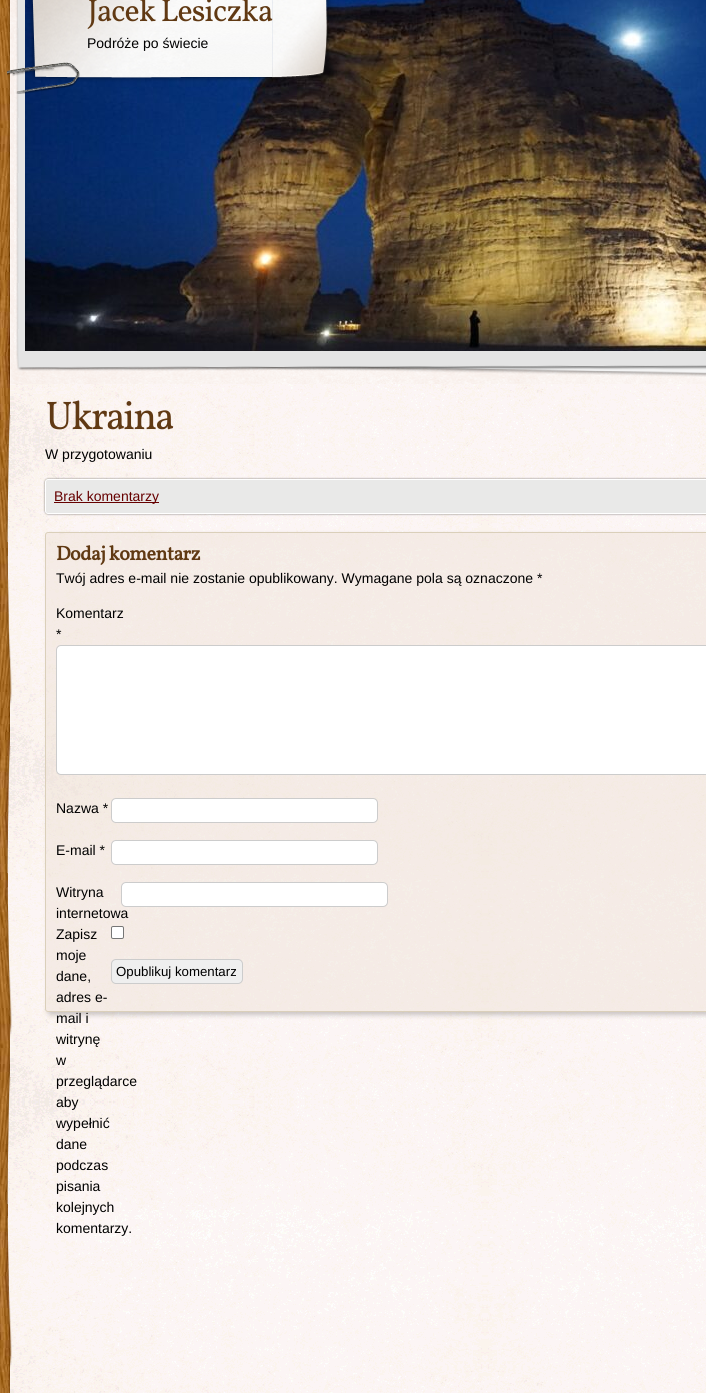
import math
import cairocffi as cairo

surface = cairo.ImageSurface(cairo.FORMAT_RGB24, 706, 1393)
cr = cairo.Context(surface)
options = cairo.FontOptions()
options.set_hint_metrics(cairo.HINT_METRICS_OFF)
options.set_hint_style(cairo.HINT_STYLE_NONE)
cr.set_font_options(options)
cr.set_miter_limit(4)


def use_color(code):
    cr.set_source_rgb(*(v / 255 for v in bytes.fromhex(code[-6:])))


def spaced_text(x, y, s, letter, word):
    cr.move_to(x, y)
    for ch in s:
        cr.show_text(ch)
        cr.rel_move_to(letter + word * (ch == ' '), 0)


def round_rect(x, y, w, h, r):
    cr.new_sub_path()
    for i, (u, v) in enumerate([(x + w - r, y + h - r), (x + r, y + h - r), (x + r, y + r), (x + w - r, y + r)]):
        cr.arc(u, v, r, i * math.pi / 2, (i + 1) * math.pi / 2)
    cr.close_path()


def shadow(x, y, w, h, r, blur, alpha):
    cr.push_group_with_content(cairo.CONTENT_ALPHA)
    cr.set_operator(cairo.OPERATOR_SOURCE)
    for i in range(15, -16, -2):
        e = blur * i / 6
        if min(w, h) + 2 * e > 0:
            cr.set_source_rgba(0, 0, 0, alpha * math.erfc((i - 1) / 8.5) / 2)
            round_rect(x - e, y - e, w + 2 * e, h + 2 * e, max(0, min(r + e + blur * .6, min(w, h) / 2 + e)))
            cr.fill()
    cr.mask(cr.pop_group())


def picture(path, x, y, w, h):
    cr.save()
    cr.set_source_surface(cairo.ImageSurface.create_from_png(path), x, y)
    cr.rectangle(x, y, w, h)
    cr.fill()
    cr.restore()


use_color("#ffffff")
cr.paint()
picture("img1.png", 0, 0, 12, 1393)
picture("img2.png", 7, 8, 18, 376)
picture("img3.png", 7, 0, 18, 28)
picture("img4.png", 13, 329, 693, 55)
picture("img5.png", 25, 0, 681, 351)
picture("img6.png", 272, 0, 65, 81)
picture("img7.png", 7, 0, 265, 94)
cr.select_font_face("Vollkorn")
cr.set_font_size(32)
use_color("#603913")
spaced_text(87, 21, "Jacek Lesiczka", -1, 0)
cr.select_font_face("Liberation Sans")
cr.set_font_size(14)
use_color("#000000")
cr.move_to(87, 48)
cr.show_text("Podróże po świecie")
picture("img8.png", 5, 384, 701, 1009)
cr.select_font_face("Vollkorn")
cr.set_font_size(40)
use_color("#603913")
spaced_text(45, 429, "Ukraina", -2, 0)
cr.select_font_face("Liberation Sans")
cr.set_font_size(14)
use_color("#000000")
cr.move_to(45, 459)
cr.show_text("W przygotowaniu")
use_color("#000000")
shadow(45, 479, 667, 35, 3, 1, 0.5)
use_color("#e9e9e8")
round_rect(45.5, 479.5, 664, 34, 2.5)
cr.fill_preserve()
use_color("#ffffff")
cr.set_line_width(1)
cr.stroke()
use_color("#660000")
cr.rectangle(54, 502, 105, 1)
cr.fill()
cr.move_to(54, 501)
cr.show_text("Brak komentarzy")
cr.save()
cr.set_fill_rule(cairo.FILL_RULE_EVEN_ODD)
cr.new_path()
cr.move_to(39, 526)
cr.line_to(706, 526)
cr.line_to(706, 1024)
cr.line_to(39, 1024)
cr.close_path()
cr.move_to(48, 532)
cr.line_to(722, 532)
cr.curve_to(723.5, 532, 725, 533.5, 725, 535)
cr.line_to(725, 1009)
cr.curve_to(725, 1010.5, 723.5, 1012, 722, 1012)
cr.line_to(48, 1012)
cr.curve_to(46.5, 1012, 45, 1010.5, 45, 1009)
cr.line_to(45, 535)
cr.curve_to(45, 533.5, 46.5, 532, 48, 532)
cr.close_path()
cr.clip()
use_color("#000000")
shadow(48, 535, 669, 480, 3, 2.5, 0.2)
cr.restore()
cr.set_source_rgba(0.937, 0.89, 0.847, 0.5)
round_rect(45.5, 532.5, 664, 479, 2.5)
cr.fill_preserve()
use_color("#dacfba")
cr.stroke()
cr.select_font_face("Vollkorn", cairo.FONT_SLANT_NORMAL, cairo.FONT_WEIGHT_BOLD)
cr.set_font_size(20)
use_color("#603913")
spaced_text(56, 560, "Dodaj komentarz", -0.5, 0)
cr.select_font_face("Liberation Sans")
cr.set_font_size(14)
use_color("#000000")
cr.move_to(56, 583)
cr.show_text("Twój adres e-mail nie zostanie opublikowany. Wymagane pola są oznaczone *")
cr.move_to(56, 618)
cr.show_text("Komentarz")
cr.move_to(56, 639)
cr.show_text("*")
use_color("#ffffff")
round_rect(56.5, 645.5, 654, 129, 4.5)
cr.fill_preserve()
use_color("#cccccc")
cr.stroke()
use_color("#000000")
cr.move_to(56, 813)
cr.show_text("Nazwa *")
use_color("#ffffff")
round_rect(111.5, 798.5, 266, 24, 4.5)
cr.fill_preserve()
use_color("#cccccc")
cr.stroke()
use_color("#000000")
cr.move_to(56, 855)
cr.show_text("E-mail *")
use_color("#ffffff")
round_rect(111.5, 840.5, 266, 24, 4.5)
cr.fill_preserve()
use_color("#cccccc")
cr.stroke()
use_color("#000000")
cr.move_to(56, 897)
cr.show_text("Witryna")
cr.move_to(56, 918)
cr.show_text("internetowa")
use_color("#ffffff")
round_rect(121.5, 882.5, 266, 24, 4.5)
cr.fill_preserve()
use_color("#cccccc")
cr.stroke()
use_color("#ffffff")
round_rect(111.5, 926.5, 12, 12, 1.5)
cr.fill_preserve()
use_color("#767676")
cr.stroke()
use_color("#000000")
cr.move_to(56, 939)
cr.show_text("Zapisz")
cr.move_to(56, 960)
cr.show_text("moje")
cr.move_to(56, 981)
cr.show_text("dane,")
cr.move_to(56, 1002)
cr.show_text("adres e-")
cr.move_to(56, 1023)
cr.show_text("mail i")
cr.move_to(56, 1044)
cr.show_text("witrynę")
cr.move_to(56, 1065)
cr.show_text("w")
cr.move_to(56, 1086)
cr.show_text("przeglądarce")
cr.move_to(56, 1107)
cr.show_text("aby")
cr.move_to(56, 1128)
cr.show_text("wypełnić")
cr.move_to(56, 1149)
cr.show_text("dane")
cr.move_to(56, 1170)
cr.show_text("podczas")
cr.move_to(56, 1191)
cr.show_text("pisania")
cr.move_to(56, 1212)
cr.show_text("kolejnych")
cr.move_to(56, 1233)
cr.show_text("komentarzy.")
use_color("#efefef")
round_rect(111.5, 959.5, 131, 24, 4.5)
cr.fill_preserve()
use_color("#cccccc")
cr.stroke()
cr.set_font_size(13.25)
use_color("#000000")
cr.move_to(116, 976)
cr.show_text("Opublikuj komentarz")
surface.write_to_png("result.png")
